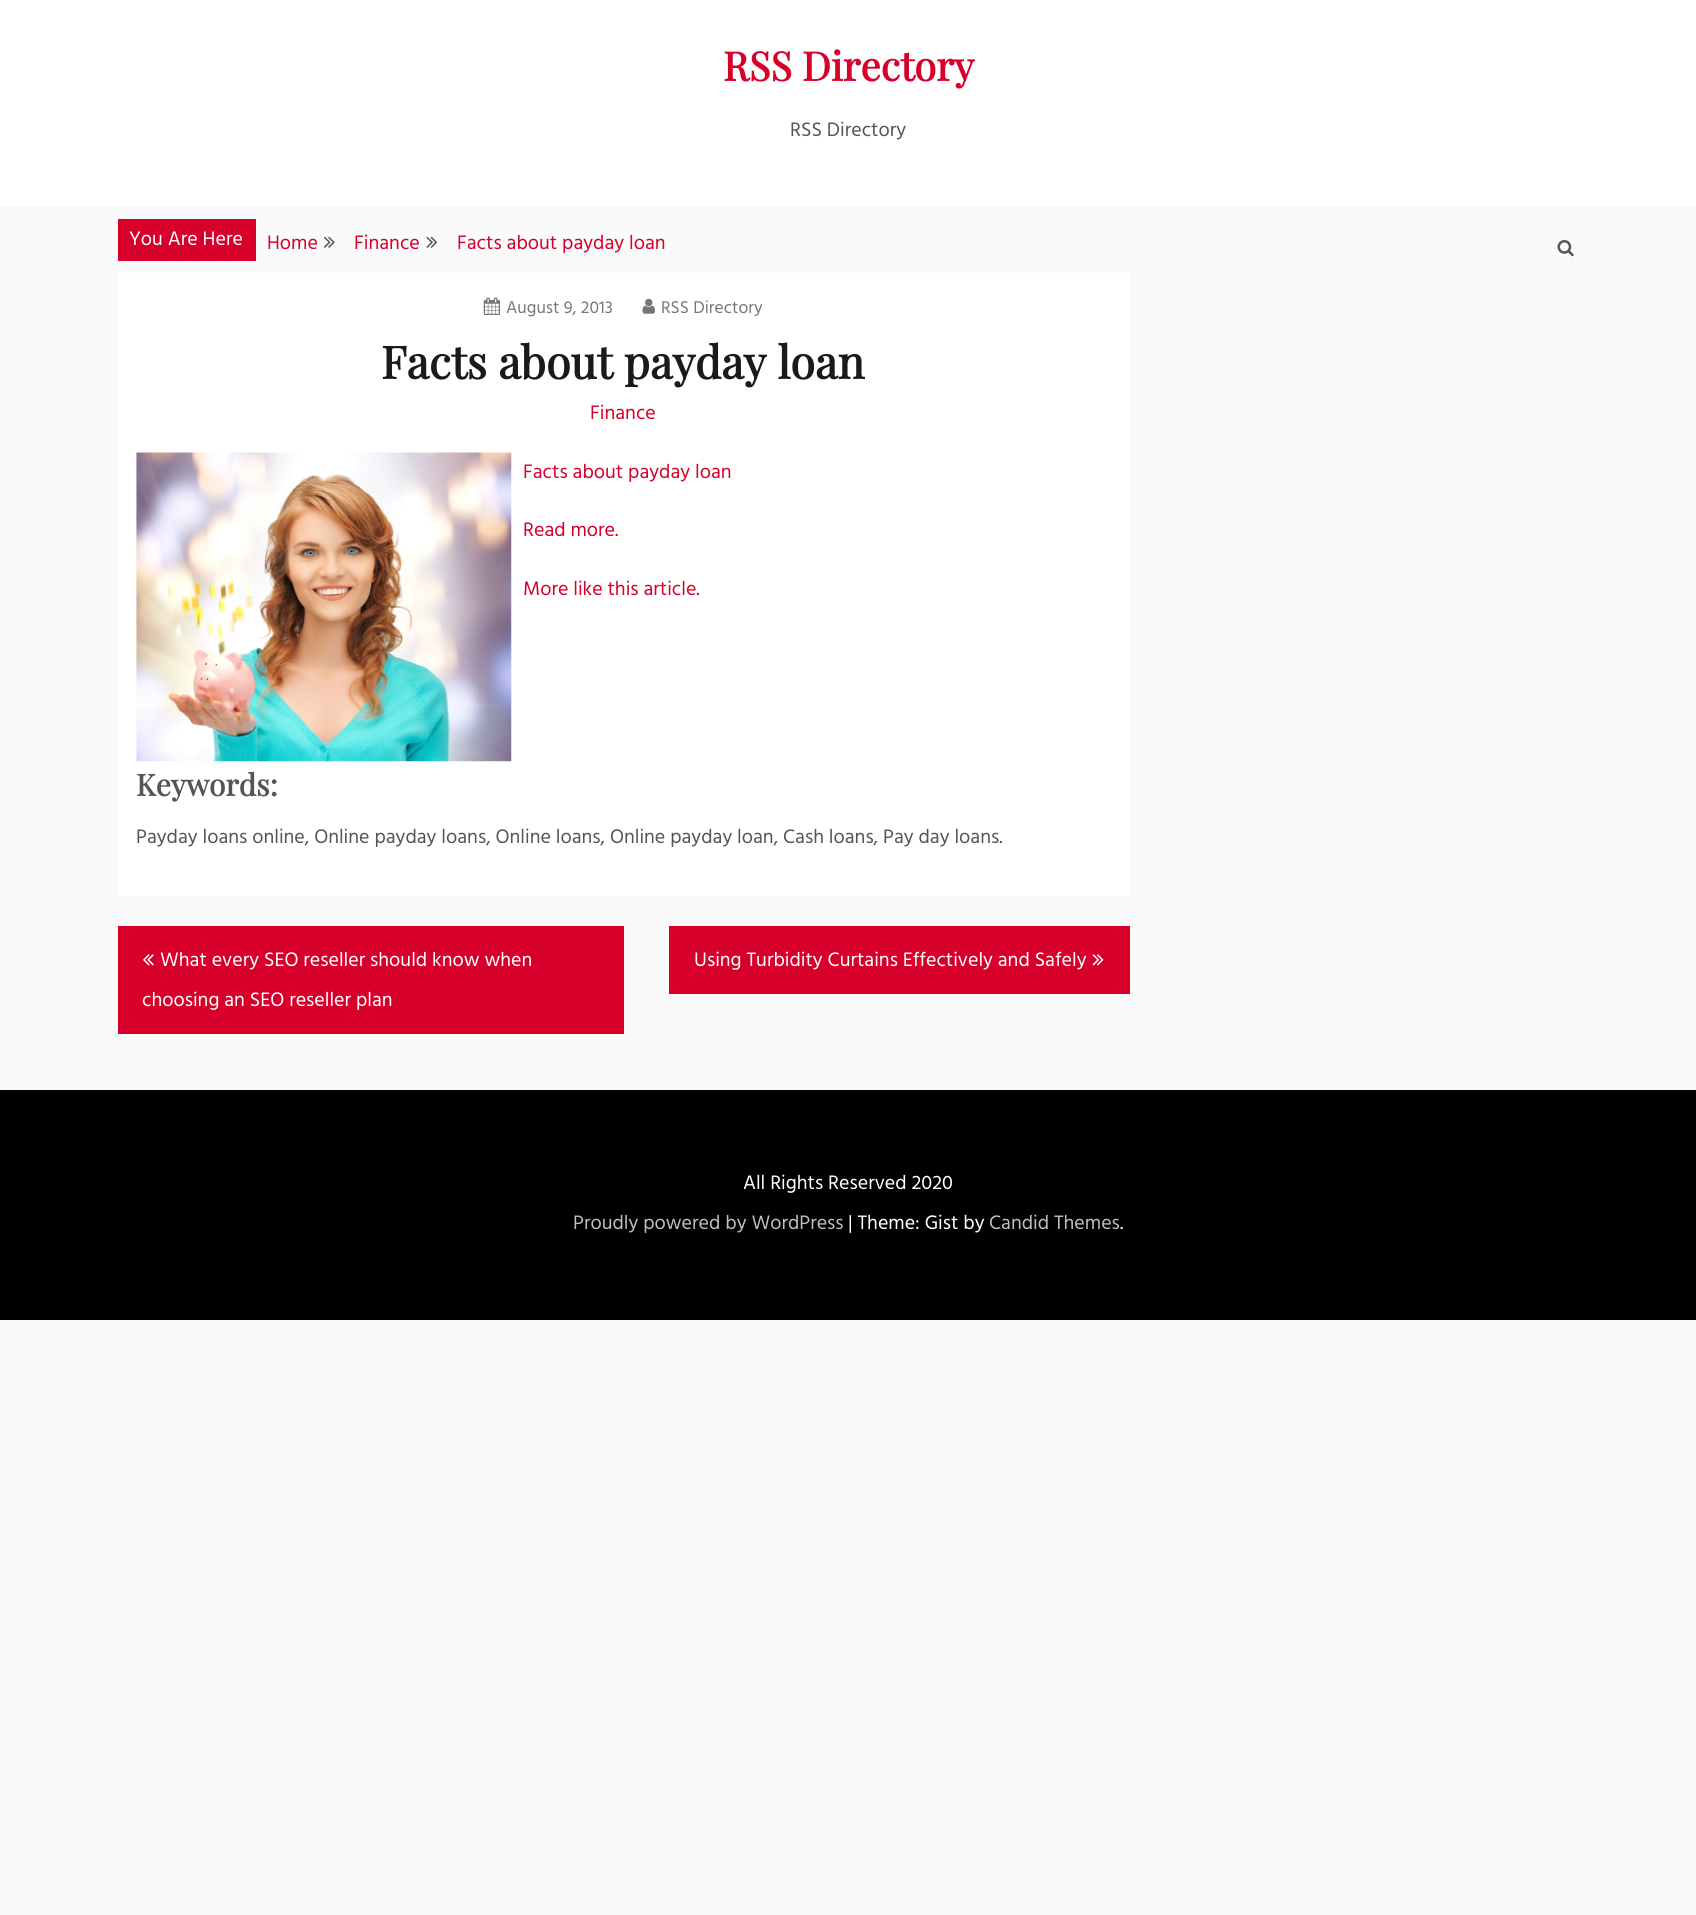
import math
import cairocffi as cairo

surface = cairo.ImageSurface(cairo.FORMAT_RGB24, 1696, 1915)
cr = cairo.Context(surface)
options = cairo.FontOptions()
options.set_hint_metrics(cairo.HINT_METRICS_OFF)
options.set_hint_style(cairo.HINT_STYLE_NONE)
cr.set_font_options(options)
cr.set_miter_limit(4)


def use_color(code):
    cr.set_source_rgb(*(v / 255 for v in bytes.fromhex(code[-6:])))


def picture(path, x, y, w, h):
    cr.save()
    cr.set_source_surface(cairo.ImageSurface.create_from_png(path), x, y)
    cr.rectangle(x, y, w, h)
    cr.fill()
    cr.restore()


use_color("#fafafa")
cr.paint()
use_color("#ffffff")
cr.rectangle(0, 0, 1696, 206)
cr.fill()
cr.select_font_face("Playfair Display", cairo.FONT_SLANT_NORMAL, cairo.FONT_WEIGHT_BOLD)
cr.set_font_size(40)
use_color("#d6002a")
cr.move_to(723, 81)
cr.show_text("RSS Directory")
cr.select_font_face("Hind")
cr.set_font_size(20)
use_color("#555555")
cr.move_to(790, 136)
cr.show_text("RSS Directory")
picture("img1.png", 1557, 240, 17, 17)
use_color("#d6002a")
cr.rectangle(118, 219, 138, 42)
cr.fill()
use_color("#ffffff")
cr.move_to(129, 245)
cr.show_text("You Are Here")
use_color("#d6002a")
cr.move_to(267, 249)
cr.show_text("Home")
picture("img2.png", 324, 236, 11, 12)
cr.move_to(354, 249)
cr.show_text("Finance")
picture("img3.png", 426, 236, 12, 12)
cr.move_to(457, 249)
cr.show_text("Facts about payday loan")
use_color("#ffffff")
cr.rectangle(118, 273, 1012, 623)
cr.fill()
picture("img4.png", 483, 297, 17, 18)
cr.set_font_size(17.5)
use_color("#777777")
cr.move_to(506, 313)
cr.show_text("August 9, 2013")
picture("img5.png", 642, 298, 13, 16)
cr.move_to(661, 313)
cr.show_text("RSS Directory")
cr.select_font_face("Playfair Display", cairo.FONT_SLANT_NORMAL, cairo.FONT_WEIGHT_BOLD)
cr.set_font_size(45)
use_color("#1a1a1a")
cr.move_to(381, 379)
cr.show_text("Facts about payday loan")
cr.select_font_face("Hind")
cr.set_font_size(20)
use_color("#d6002a")
cr.move_to(590, 419)
cr.show_text("Finance")
picture("img6.png", 136, 452, 376, 310)
cr.move_to(523, 478)
cr.show_text("Facts about payday loan")
cr.move_to(523, 536)
cr.show_text("Read more.")
cr.move_to(523, 595)
cr.show_text("More like this article.")
cr.select_font_face("Playfair Display", cairo.FONT_SLANT_NORMAL, cairo.FONT_WEIGHT_BOLD)
cr.set_font_size(30)
use_color("#555555")
cr.move_to(136, 796)
cr.show_text("Keywords:")
cr.select_font_face("Hind")
cr.set_font_size(20)
cr.move_to(136, 843)
cr.show_text("Payday loans online, Online payday loans, Online loans, Online payday loan, Cash loans, Pay day loans.")
use_color("#d6002a")
cr.rectangle(118, 926, 506, 108)
cr.fill()
picture("img7.png", 143, 954, 11, 12)
use_color("#ffffff")
cr.move_to(160, 966)
cr.show_text("What every SEO reseller should know when")
cr.move_to(142, 1006)
cr.show_text("choosing an SEO reseller plan")
use_color("#d6002a")
cr.rectangle(669, 926, 461, 68)
cr.fill()
use_color("#ffffff")
cr.move_to(694, 966)
cr.show_text("Using Turbidity Curtains Effectively and Safely")
picture("img8.png", 1092, 954, 12, 12)
use_color("#000000")
cr.rectangle(0, 1090, 1696, 230)
cr.fill()
use_color("#ffffff")
cr.move_to(743, 1189)
cr.show_text("All Rights Reserved 2020")
use_color("#bfbfbf")
cr.move_to(573, 1229)
cr.show_text("Proudly powered by WordPress")
use_color("#ffffff")
cr.move_to(848, 1229)
cr.show_text("| Theme: Gist by")
use_color("#bfbfbf")
cr.move_to(989, 1229)
cr.show_text("Candid Themes")
use_color("#ffffff")
cr.move_to(1120, 1229)
cr.show_text(".")
surface.write_to_png("result.png")
